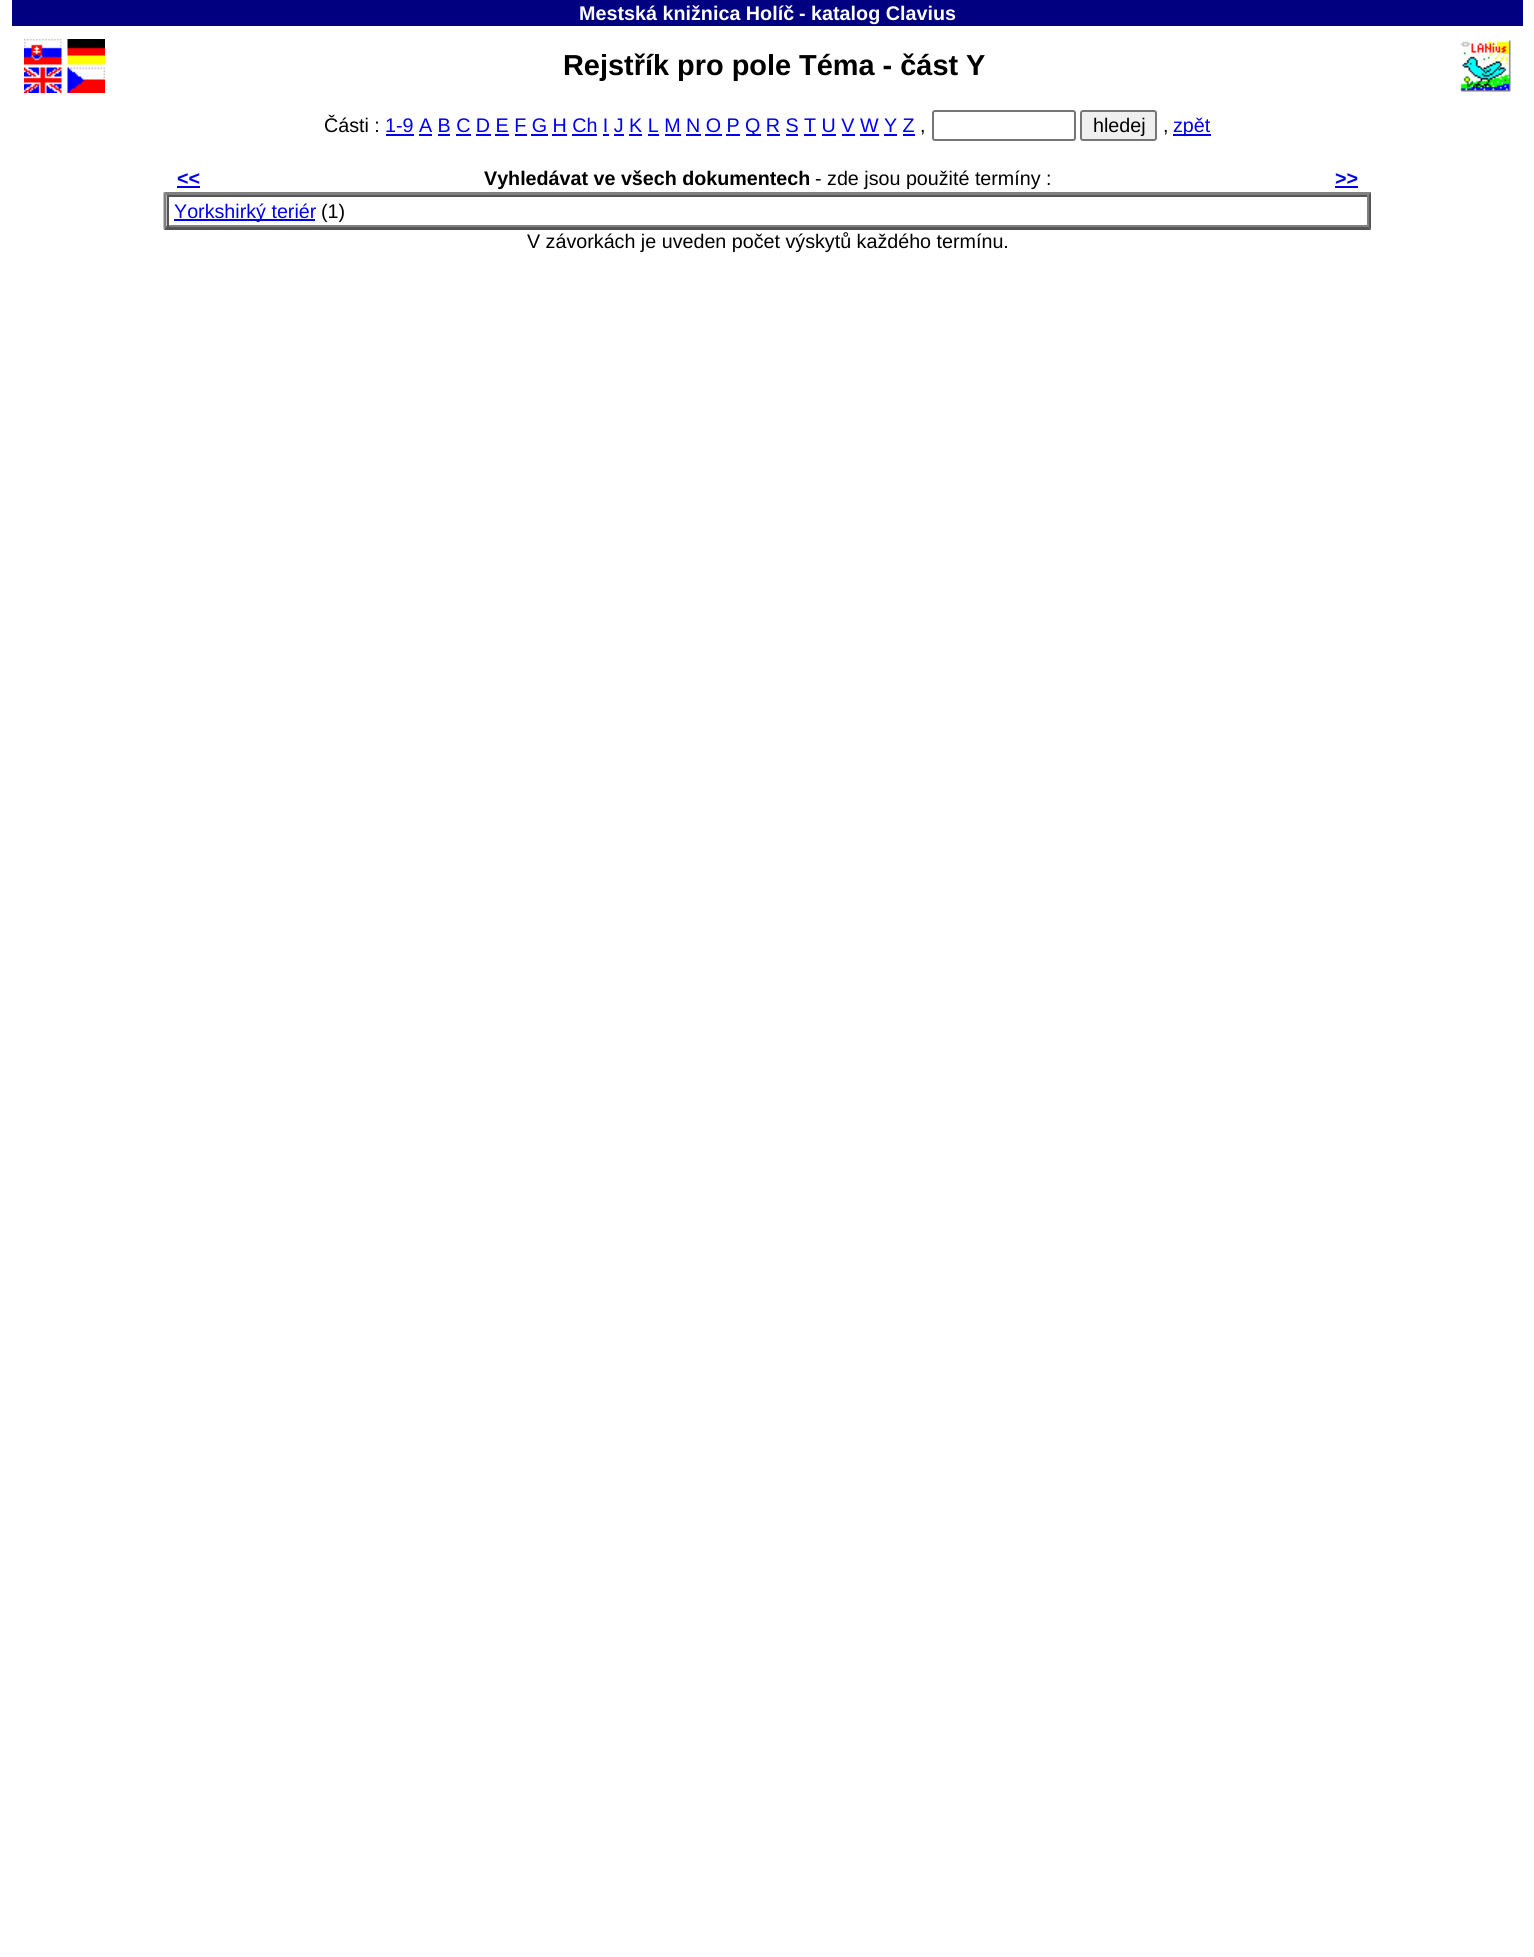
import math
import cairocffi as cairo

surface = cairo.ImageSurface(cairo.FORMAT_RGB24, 1534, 1957)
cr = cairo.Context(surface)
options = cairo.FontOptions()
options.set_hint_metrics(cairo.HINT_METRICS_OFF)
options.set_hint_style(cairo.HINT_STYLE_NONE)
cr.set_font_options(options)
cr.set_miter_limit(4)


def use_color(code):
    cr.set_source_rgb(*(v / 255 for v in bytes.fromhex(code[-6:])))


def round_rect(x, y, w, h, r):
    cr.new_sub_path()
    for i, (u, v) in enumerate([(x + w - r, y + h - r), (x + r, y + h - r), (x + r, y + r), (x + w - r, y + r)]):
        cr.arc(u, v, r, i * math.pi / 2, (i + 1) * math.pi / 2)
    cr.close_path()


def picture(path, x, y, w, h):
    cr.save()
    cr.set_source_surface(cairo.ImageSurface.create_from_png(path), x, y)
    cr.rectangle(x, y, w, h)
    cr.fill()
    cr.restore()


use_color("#ffffff")
cr.paint()
use_color("#000080")
cr.rectangle(12, 0, 1511, 26)
cr.fill()
cr.select_font_face("Liberation Sans", cairo.FONT_SLANT_NORMAL, cairo.FONT_WEIGHT_BOLD)
cr.set_font_size(19.75)
use_color("#ffffff")
cr.move_to(579, 20)
cr.show_text("Mestská knižnica Holíč")
cr.move_to(799, 20)
cr.show_text("- katalog Clavius")
picture("img1.png", 24, 39, 38, 26)
picture("img2.png", 24, 67, 38, 26)
picture("img3.png", 67, 39, 38, 26)
picture("img4.png", 67, 67, 38, 26)
cr.set_font_size(28.9)
use_color("#000000")
cr.move_to(563, 75)
cr.show_text("Rejstřík pro pole Téma - část Y")
picture("img5.png", 1460, 40, 51, 52)
cr.select_font_face("Liberation Sans")
cr.set_font_size(19.7)
cr.move_to(324, 132)
cr.show_text("Části :")
use_color("#0000ee")
cr.move_to(385, 132)
cr.show_text("1-9 A B C D E F G H Ch I J K L M N O P")
cr.rectangle(386, 134, 28, 2)
cr.fill()
cr.rectangle(746, 134, 15, 2)
cr.fill()
cr.move_to(745, 132)
cr.show_text("Q R S T U V W Y Z")
use_color("#000000")
cr.move_to(920, 132)
cr.show_text(",")
use_color("#0000ee")
cr.rectangle(419, 134, 13, 2)
cr.fill()
cr.rectangle(438, 134, 12, 2)
cr.fill()
cr.rectangle(456, 134, 15, 2)
cr.fill()
cr.rectangle(476, 134, 15, 2)
cr.fill()
cr.rectangle(495, 134, 14, 2)
cr.fill()
cr.rectangle(515, 134, 12, 2)
cr.fill()
cr.rectangle(531, 134, 17, 2)
cr.fill()
cr.rectangle(552, 134, 15, 2)
cr.fill()
cr.rectangle(572, 134, 25, 2)
cr.fill()
cr.rectangle(603, 134, 6, 2)
cr.fill()
cr.rectangle(614, 134, 10, 2)
cr.fill()
cr.rectangle(629, 134, 13, 2)
cr.fill()
cr.rectangle(648, 134, 11, 2)
cr.fill()
cr.rectangle(665, 134, 16, 2)
cr.fill()
cr.rectangle(686, 134, 15, 2)
cr.fill()
cr.rectangle(705, 134, 17, 2)
cr.fill()
cr.rectangle(726, 134, 14, 2)
cr.fill()
cr.rectangle(767, 134, 13, 2)
cr.fill()
cr.rectangle(786, 134, 12, 2)
cr.fill()
cr.rectangle(804, 134, 12, 2)
cr.fill()
cr.rectangle(822, 134, 14, 2)
cr.fill()
cr.rectangle(842, 134, 13, 2)
cr.fill()
cr.rectangle(860, 134, 19, 2)
cr.fill()
cr.rectangle(884, 134, 13, 2)
cr.fill()
cr.rectangle(903, 134, 12, 2)
cr.fill()
round_rect(933, 111, 142, 29, 2)
use_color("#767676")
cr.stroke()
use_color("#efefef")
round_rect(1081, 111, 75, 29, 2)
cr.fill_preserve()
use_color("#767676")
cr.stroke()
use_color("#000000")
cr.move_to(1093, 132)
cr.show_text("hledej")
cr.move_to(1163, 132)
cr.show_text(",")
use_color("#0000ee")
cr.rectangle(1173, 134, 38, 2)
cr.fill()
cr.move_to(1173, 132)
cr.show_text("zpět")
cr.select_font_face("Liberation Sans", cairo.FONT_SLANT_NORMAL, cairo.FONT_WEIGHT_BOLD)
cr.move_to(177, 185)
cr.show_text("<<")
cr.rectangle(177, 186, 23, 2)
cr.fill()
use_color("#000000")
cr.move_to(484, 185)
cr.show_text("Vyhledávat ve všech dokumentech")
cr.select_font_face("Liberation Sans")
cr.move_to(815, 185)
cr.show_text("- zde jsou použité termíny :")
cr.select_font_face("Liberation Sans", cairo.FONT_SLANT_NORMAL, cairo.FONT_WEIGHT_BOLD)
use_color("#0000ee")
cr.move_to(1335, 185)
cr.show_text(">>")
cr.rectangle(1335, 186, 23, 2)
cr.fill()
use_color("#808080")
cr.new_path()
cr.move_to(164, 192)
cr.line_to(1371, 192)
cr.line_to(1368, 195)
cr.line_to(166, 195)
cr.close_path()
cr.fill()
use_color("#555555")
cr.new_path()
cr.move_to(1371, 192)
cr.line_to(1371, 229.5)
cr.line_to(1368, 226.5)
cr.line_to(1368, 195)
cr.close_path()
cr.fill()
cr.new_path()
cr.move_to(1371, 230)
cr.line_to(164, 230)
cr.line_to(166, 226)
cr.line_to(1368, 226)
cr.close_path()
cr.fill()
use_color("#808080")
cr.new_path()
cr.move_to(163.5, 229.5)
cr.line_to(163.5, 192)
cr.line_to(166.5, 195)
cr.line_to(166.5, 226.5)
cr.close_path()
cr.fill()
use_color("#555555")
cr.rectangle(167, 195, 1201, 2)
cr.fill()
use_color("#808080")
cr.rectangle(1367, 195, 2, 32)
cr.fill()
cr.rectangle(167, 225, 1201, 2)
cr.fill()
use_color("#555555")
cr.rectangle(167, 195, 2, 32)
cr.fill()
use_color("#0000ee")
cr.rectangle(174, 219, 141, 2)
cr.fill()
cr.select_font_face("Liberation Sans")
cr.move_to(174, 218)
cr.show_text("Yorkshirký teriér")
use_color("#000000")
cr.move_to(321, 218)
cr.show_text("(1)")
cr.move_to(527, 248)
cr.show_text("V závorkách je uveden počet výskytů každého termínu.")
surface.write_to_png("result.png")
